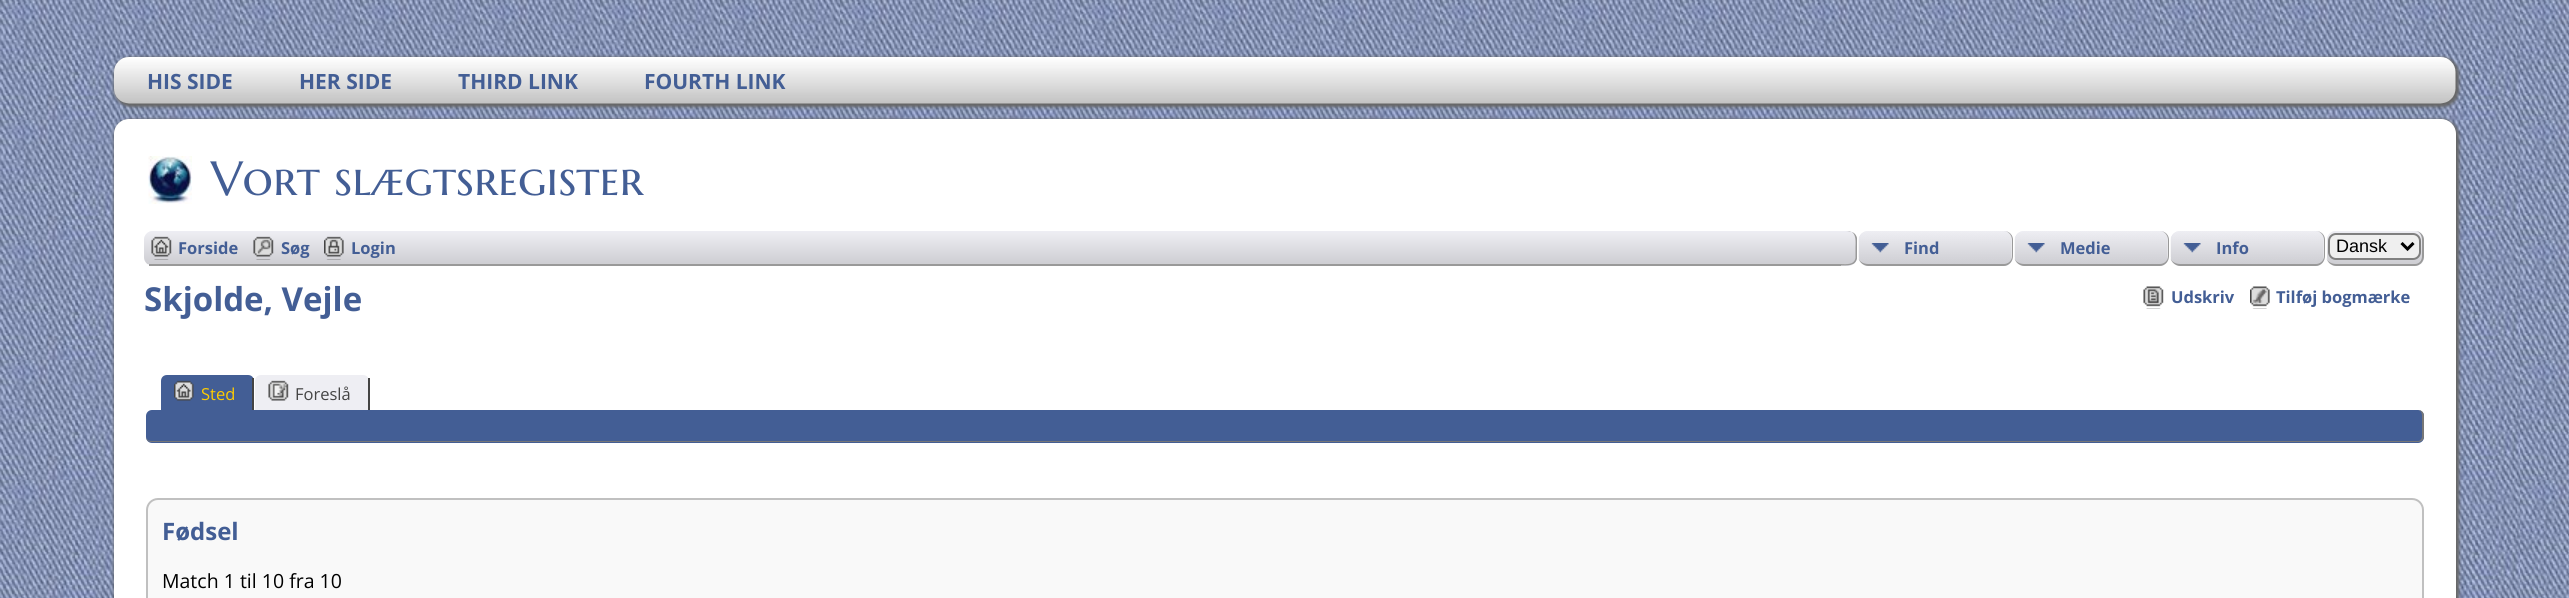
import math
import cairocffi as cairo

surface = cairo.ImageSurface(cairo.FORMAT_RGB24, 2569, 598)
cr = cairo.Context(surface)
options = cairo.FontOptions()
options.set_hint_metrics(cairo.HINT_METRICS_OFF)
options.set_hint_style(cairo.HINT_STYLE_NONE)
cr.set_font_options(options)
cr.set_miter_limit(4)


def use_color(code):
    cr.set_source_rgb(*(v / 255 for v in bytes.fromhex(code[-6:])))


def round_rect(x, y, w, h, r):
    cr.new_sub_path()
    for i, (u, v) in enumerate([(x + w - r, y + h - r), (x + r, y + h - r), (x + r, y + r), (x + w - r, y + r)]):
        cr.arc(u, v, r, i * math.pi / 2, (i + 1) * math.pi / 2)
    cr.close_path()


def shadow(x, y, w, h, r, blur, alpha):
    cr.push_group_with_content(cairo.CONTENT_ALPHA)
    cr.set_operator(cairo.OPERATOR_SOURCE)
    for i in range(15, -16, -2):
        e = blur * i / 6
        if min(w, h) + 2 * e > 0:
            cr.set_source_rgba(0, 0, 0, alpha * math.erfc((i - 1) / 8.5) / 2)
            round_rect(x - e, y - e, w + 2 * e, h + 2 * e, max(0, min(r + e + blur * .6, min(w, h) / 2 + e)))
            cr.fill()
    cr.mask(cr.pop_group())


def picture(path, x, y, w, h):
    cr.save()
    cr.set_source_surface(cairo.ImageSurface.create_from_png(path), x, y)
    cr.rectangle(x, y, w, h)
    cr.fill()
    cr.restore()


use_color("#ffffff")
cr.paint()
picture("img1.png", 0, 0, 2569, 598)
use_color("#666666")
shadow(114, 57, 2345, 50, 17, 1.5, 1)
picture("img2.png", 114, 57, 2342, 47)
cr.select_font_face("Open Sans", cairo.FONT_SLANT_NORMAL, cairo.FONT_WEIGHT_BOLD)
cr.set_font_size(21)
use_color("#435e95")
cr.move_to(147, 89)
cr.show_text("HIS SIDE")
cr.move_to(299, 89)
cr.show_text("HER SIDE")
cr.move_to(458, 89)
cr.show_text("THIRD LINK")
cr.move_to(644, 89)
cr.show_text("FOURTH LINK")
use_color("#666666")
shadow(114, 119, 2345, 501, 17, 1.5, 1)
use_color("#ffffff")
round_rect(114, 119, 2342, 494, 15)
cr.fill()
picture("img3.png", 148, 156, 44, 48)
cr.select_font_face("Marcellus SC")
cr.set_font_size(48)
use_color("#435e95")
cr.move_to(211, 195)
cr.show_text("Vort slægtsregister")
use_color("#eeeef3")
round_rect(144, 231, 2282, 35, 9)
cr.fill()
cr.save()
round_rect(144, 231, 2282, 35, 9)
cr.clip()
gradient = cairo.LinearGradient(1285, 231, 1285, 264)
gradient.add_color_stop_rgba(0, 0.933, 0.933, 0.953, 1)
gradient.add_color_stop_rgba(1, 0.808, 0.808, 0.827, 1)
cr.set_source(gradient)
cr.new_path()
cr.move_to(153, 231)
cr.line_to(2417, 231)
cr.curve_to(2422, 231, 2426, 235, 2426, 240)
cr.line_to(2426, 264)
cr.line_to(144, 264)
cr.line_to(144, 240)
cr.curve_to(144, 235, 148, 231, 153, 231)
cr.close_path()
cr.fill()
gradient = cairo.LinearGradient(1285, 264, 1285, 297)
gradient.add_color_stop_rgba(0, 0.933, 0.933, 0.953, 1)
gradient.add_color_stop_rgba(1, 0.808, 0.808, 0.827, 1)
cr.set_source(gradient)
cr.rectangle(144, 264, 5, 1)
cr.fill()
cr.restore()
use_color("#999999")
cr.rectangle(149, 264, 1692, 2)
cr.fill()
picture("img4.png", 151, 236, 21, 24)
cr.select_font_face("Open Sans", cairo.FONT_SLANT_NORMAL, cairo.FONT_WEIGHT_BOLD)
cr.set_font_size(16.5)
use_color("#435e95")
cr.move_to(178, 254)
cr.show_text("Forside")
picture("img5.png", 253, 236, 21, 24)
cr.move_to(281, 254)
cr.show_text("Søg")
picture("img6.png", 324, 236, 20, 24)
cr.move_to(351, 254)
cr.show_text("Login")
use_color("#ffffff")
cr.rectangle(1848, 231, 578, 35)
cr.fill()
cr.save()
cr.new_path()
cr.move_to(1841, 231)
cr.line_to(1848, 231)
cr.curve_to(1853, 231, 1857, 235, 1857, 240)
cr.line_to(1857, 257)
cr.curve_to(1857, 262, 1853, 266, 1848, 266)
cr.line_to(1841, 266)
cr.close_path()
cr.clip()
gradient = cairo.LinearGradient(1848, 231, 1848, 264)
gradient.add_color_stop_rgba(0, 0.933, 0.933, 0.953, 1)
gradient.add_color_stop_rgba(1, 0.808, 0.808, 0.827, 1)
cr.set_source(gradient)
cr.rectangle(1841, 231, 16, 33)
cr.fill()
gradient = cairo.LinearGradient(1848, 264, 1848, 297)
gradient.add_color_stop_rgba(0, 0.933, 0.933, 0.953, 1)
gradient.add_color_stop_rgba(1, 0.808, 0.808, 0.827, 1)
cr.set_source(gradient)
cr.rectangle(1841, 264, 16, 2)
cr.fill()
cr.restore()
use_color("#999999")
cr.set_fill_rule(cairo.FILL_RULE_EVEN_ODD)
cr.new_path()
cr.move_to(1840.5, 231)
cr.curve_to(1847, 231, 1855, 230, 1857, 238)
cr.line_to(1857, 258.5)
cr.curve_to(1855, 266.5, 1847, 265.5, 1840.5, 265.5)
cr.close_path()
cr.move_to(1840.5, 231)
cr.line_to(1849.5, 231)
cr.curve_to(1857, 233, 1855.5, 242.5, 1855.5, 248)
cr.line_to(1855.5, 258)
cr.curve_to(1854, 265.5, 1846, 264, 1840.5, 264)
cr.close_path()
cr.fill()
use_color("#eeeef3")
round_rect(1859, 231, 154, 35, 9)
cr.fill()
picture("img7.png", 1858, 231, 154, 33)
use_color("#999999")
cr.new_path()
cr.move_to(1868, 231)
cr.line_to(2004, 231)
cr.curve_to(2009, 231, 2013, 235, 2013, 240)
cr.line_to(2013, 256)
cr.curve_to(2013, 261, 2009, 266, 2004, 266)
cr.line_to(1868, 266)
cr.curve_to(1863, 266, 1858, 261, 1858, 256)
cr.line_to(1858, 240)
cr.curve_to(1858, 235, 1863, 231, 1868, 231)
cr.close_path()
cr.move_to(1868, 231)
cr.line_to(2004, 231)
cr.curve_to(2008, 231, 2012, 235, 2012, 240)
cr.line_to(2012, 256)
cr.curve_to(2012, 261, 2008, 264, 2004, 264)
cr.line_to(1868, 264)
cr.curve_to(1863, 264, 1858, 261, 1858, 256)
cr.line_to(1858, 240)
cr.curve_to(1858, 235, 1863, 231, 1868, 231)
cr.close_path()
cr.fill()
use_color("#435e95")
cr.move_to(1904, 254)
cr.show_text("Find")
use_color("#eeeef3")
round_rect(2015, 231, 154, 35, 9)
cr.fill()
picture("img8.png", 2014, 231, 154, 33)
use_color("#999999")
cr.new_path()
cr.move_to(2024, 231)
cr.line_to(2160, 231)
cr.curve_to(2165, 231, 2169, 235, 2169, 240)
cr.line_to(2169, 256)
cr.curve_to(2169, 261, 2165, 266, 2160, 266)
cr.line_to(2024, 266)
cr.curve_to(2019, 266, 2014, 261, 2014, 256)
cr.line_to(2014, 240)
cr.curve_to(2014, 235, 2019, 231, 2024, 231)
cr.close_path()
cr.move_to(2024, 231)
cr.line_to(2160, 231)
cr.curve_to(2164, 231, 2168, 235, 2168, 240)
cr.line_to(2168, 256)
cr.curve_to(2168, 261, 2164, 264, 2160, 264)
cr.line_to(2024, 264)
cr.curve_to(2019, 264, 2014, 261, 2014, 256)
cr.line_to(2014, 240)
cr.curve_to(2014, 235, 2019, 231, 2024, 231)
cr.close_path()
cr.fill()
use_color("#435e95")
cr.move_to(2060, 254)
cr.show_text("Medie")
use_color("#eeeef3")
round_rect(2171, 231, 154, 35, 9)
cr.fill()
picture("img9.png", 2170, 231, 154, 33)
use_color("#999999")
cr.new_path()
cr.move_to(2180, 231)
cr.line_to(2316, 231)
cr.curve_to(2321, 231, 2325, 235, 2325, 240)
cr.line_to(2325, 256)
cr.curve_to(2325, 261, 2321, 266, 2316, 266)
cr.line_to(2180, 266)
cr.curve_to(2175, 266, 2170, 261, 2170, 256)
cr.line_to(2170, 240)
cr.curve_to(2170, 235, 2175, 231, 2180, 231)
cr.close_path()
cr.move_to(2180, 231)
cr.line_to(2316, 231)
cr.curve_to(2320, 231, 2324, 235, 2324, 240)
cr.line_to(2324, 256)
cr.curve_to(2324, 261, 2320, 264, 2316, 264)
cr.line_to(2180, 264)
cr.curve_to(2175, 264, 2170, 261, 2170, 256)
cr.line_to(2170, 240)
cr.curve_to(2170, 235, 2175, 231, 2180, 231)
cr.close_path()
cr.fill()
use_color("#435e95")
cr.move_to(2216, 254)
cr.show_text("Info")
use_color("#eeeef3")
round_rect(2327, 231, 97, 35, 9)
cr.fill()
cr.save()
cr.set_fill_rule(cairo.FILL_RULE_WINDING)
round_rect(2327, 231, 97, 35, 9)
cr.clip()
gradient = cairo.LinearGradient(2375, 231, 2375, 264)
gradient.add_color_stop_rgba(0, 0.933, 0.933, 0.953, 1)
gradient.add_color_stop_rgba(1, 0.808, 0.808, 0.827, 1)
cr.set_source(gradient)
cr.new_path()
cr.move_to(2336, 231)
cr.line_to(2415, 231)
cr.curve_to(2420, 231, 2424, 235, 2424, 240)
cr.line_to(2424, 264)
cr.line_to(2327, 264)
cr.line_to(2327, 240)
cr.curve_to(2327, 235, 2331, 231, 2336, 231)
cr.close_path()
cr.fill()
gradient = cairo.LinearGradient(2375, 264, 2375, 297)
gradient.add_color_stop_rgba(0, 0.933, 0.933, 0.953, 1)
gradient.add_color_stop_rgba(1, 0.808, 0.808, 0.827, 1)
cr.set_source(gradient)
cr.rectangle(2327, 264, 97, 2)
cr.fill()
cr.restore()
use_color("#999999")
cr.new_path()
cr.move_to(2336, 231)
cr.line_to(2415, 231)
cr.curve_to(2420, 231, 2424, 235, 2424, 240)
cr.line_to(2424, 256)
cr.curve_to(2424, 261, 2420, 266, 2415, 266)
cr.line_to(2336, 266)
cr.curve_to(2331, 266, 2326, 261, 2326, 256)
cr.line_to(2326, 240)
cr.curve_to(2326, 235, 2331, 231, 2336, 231)
cr.close_path()
cr.move_to(2336, 231)
cr.line_to(2415, 231)
cr.curve_to(2419, 231, 2422, 235, 2422, 240)
cr.line_to(2422, 256)
cr.curve_to(2422, 261, 2419, 264, 2415, 264)
cr.line_to(2336, 264)
cr.curve_to(2331, 264, 2326, 261, 2326, 256)
cr.line_to(2326, 240)
cr.curve_to(2326, 235, 2331, 231, 2336, 231)
cr.close_path()
cr.fill()
use_color("#efefef")
round_rect(2329, 234, 91, 25, 7)
cr.fill_preserve()
use_color("#808080")
cr.stroke()
cr.new_path()
cr.move_to(2401.5, 243)
cr.line_to(2407.5, 249)
cr.line_to(2413.5, 243)
use_color("#000000")
cr.set_line_width(3)
cr.stroke()
cr.select_font_face("Liberation Sans")
cr.set_font_size(18)
cr.move_to(2336, 252)
cr.show_text("Dansk")
cr.select_font_face("Open Sans", cairo.FONT_SLANT_NORMAL, cairo.FONT_WEIGHT_BOLD)
cr.set_font_size(33)
use_color("#435e95")
cr.move_to(144, 311)
cr.show_text("Skjolde, Vejle")
picture("img10.png", 2143, 286, 21, 23)
cr.set_font_size(16.5)
cr.move_to(2171, 303)
cr.show_text("Udskriv")
picture("img11.png", 2250, 286, 20, 23)
cr.move_to(2276, 303)
cr.show_text("Tilføj bogmærke")
cr.new_path()
cr.move_to(167, 375)
cr.line_to(248, 375)
cr.curve_to(251.5, 375, 254, 377.5, 254, 381)
cr.line_to(254, 410)
cr.line_to(161, 410)
cr.line_to(161, 381)
cr.curve_to(161, 377.5, 163.5, 375, 167, 375)
cr.close_path()
cr.fill()
use_color("#444444")
cr.rectangle(252, 378, 2, 32)
cr.fill()
picture("img12.png", 174, 380, 20, 21)
cr.select_font_face("Open Sans")
use_color("#ffcc00")
cr.move_to(201, 400)
cr.show_text("Sted")
use_color("#eeeef3")
cr.new_path()
cr.move_to(261, 375)
cr.line_to(363, 375)
cr.curve_to(366.5, 375, 369, 377.5, 369, 381)
cr.line_to(369, 410)
cr.line_to(255, 410)
cr.line_to(255, 381)
cr.curve_to(255, 377.5, 257.5, 375, 261, 375)
cr.close_path()
cr.fill()
use_color("#444444")
cr.rectangle(368, 378, 2, 32)
cr.fill()
picture("img13.png", 268, 380, 21, 21)
cr.move_to(295, 400)
cr.show_text("Foreslå")
use_color("#435e95")
round_rect(146, 410, 2278, 33, 6)
cr.fill()
use_color("#777777")
cr.new_path()
cr.move_to(152, 410)
cr.line_to(2418, 410)
cr.curve_to(2421, 410, 2424, 412, 2424, 416)
cr.line_to(2424, 436)
cr.curve_to(2424, 440, 2421, 442, 2418, 442)
cr.line_to(152, 442)
cr.curve_to(148, 442, 146, 440, 146, 436)
cr.line_to(146, 416)
cr.curve_to(146, 412, 148, 410, 152, 410)
cr.close_path()
cr.move_to(152, 410)
cr.line_to(2418, 410)
cr.curve_to(2420, 410, 2422, 412, 2422, 416)
cr.line_to(2422, 436)
cr.curve_to(2422, 439, 2420, 441, 2418, 441)
cr.line_to(152, 441)
cr.curve_to(148, 441, 146, 439, 146, 436)
cr.line_to(146, 416)
cr.curve_to(146, 412, 148, 410, 152, 410)
cr.close_path()
cr.fill()
use_color("#f9f9f9")
round_rect(147, 499, 2276, 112, 11)
cr.fill_preserve()
use_color("#c0c0c0")
cr.set_line_width(2)
cr.stroke()
cr.select_font_face("Open Sans", cairo.FONT_SLANT_NORMAL, cairo.FONT_WEIGHT_BOLD)
cr.set_font_size(24)
use_color("#435e95")
cr.move_to(162, 540)
cr.show_text("Fødsel")
cr.select_font_face("Open Sans")
cr.set_font_size(19.5)
use_color("#000000")
cr.move_to(162, 588)
cr.show_text("Match 1 til 10 fra 10")
surface.write_to_png("result.png")
